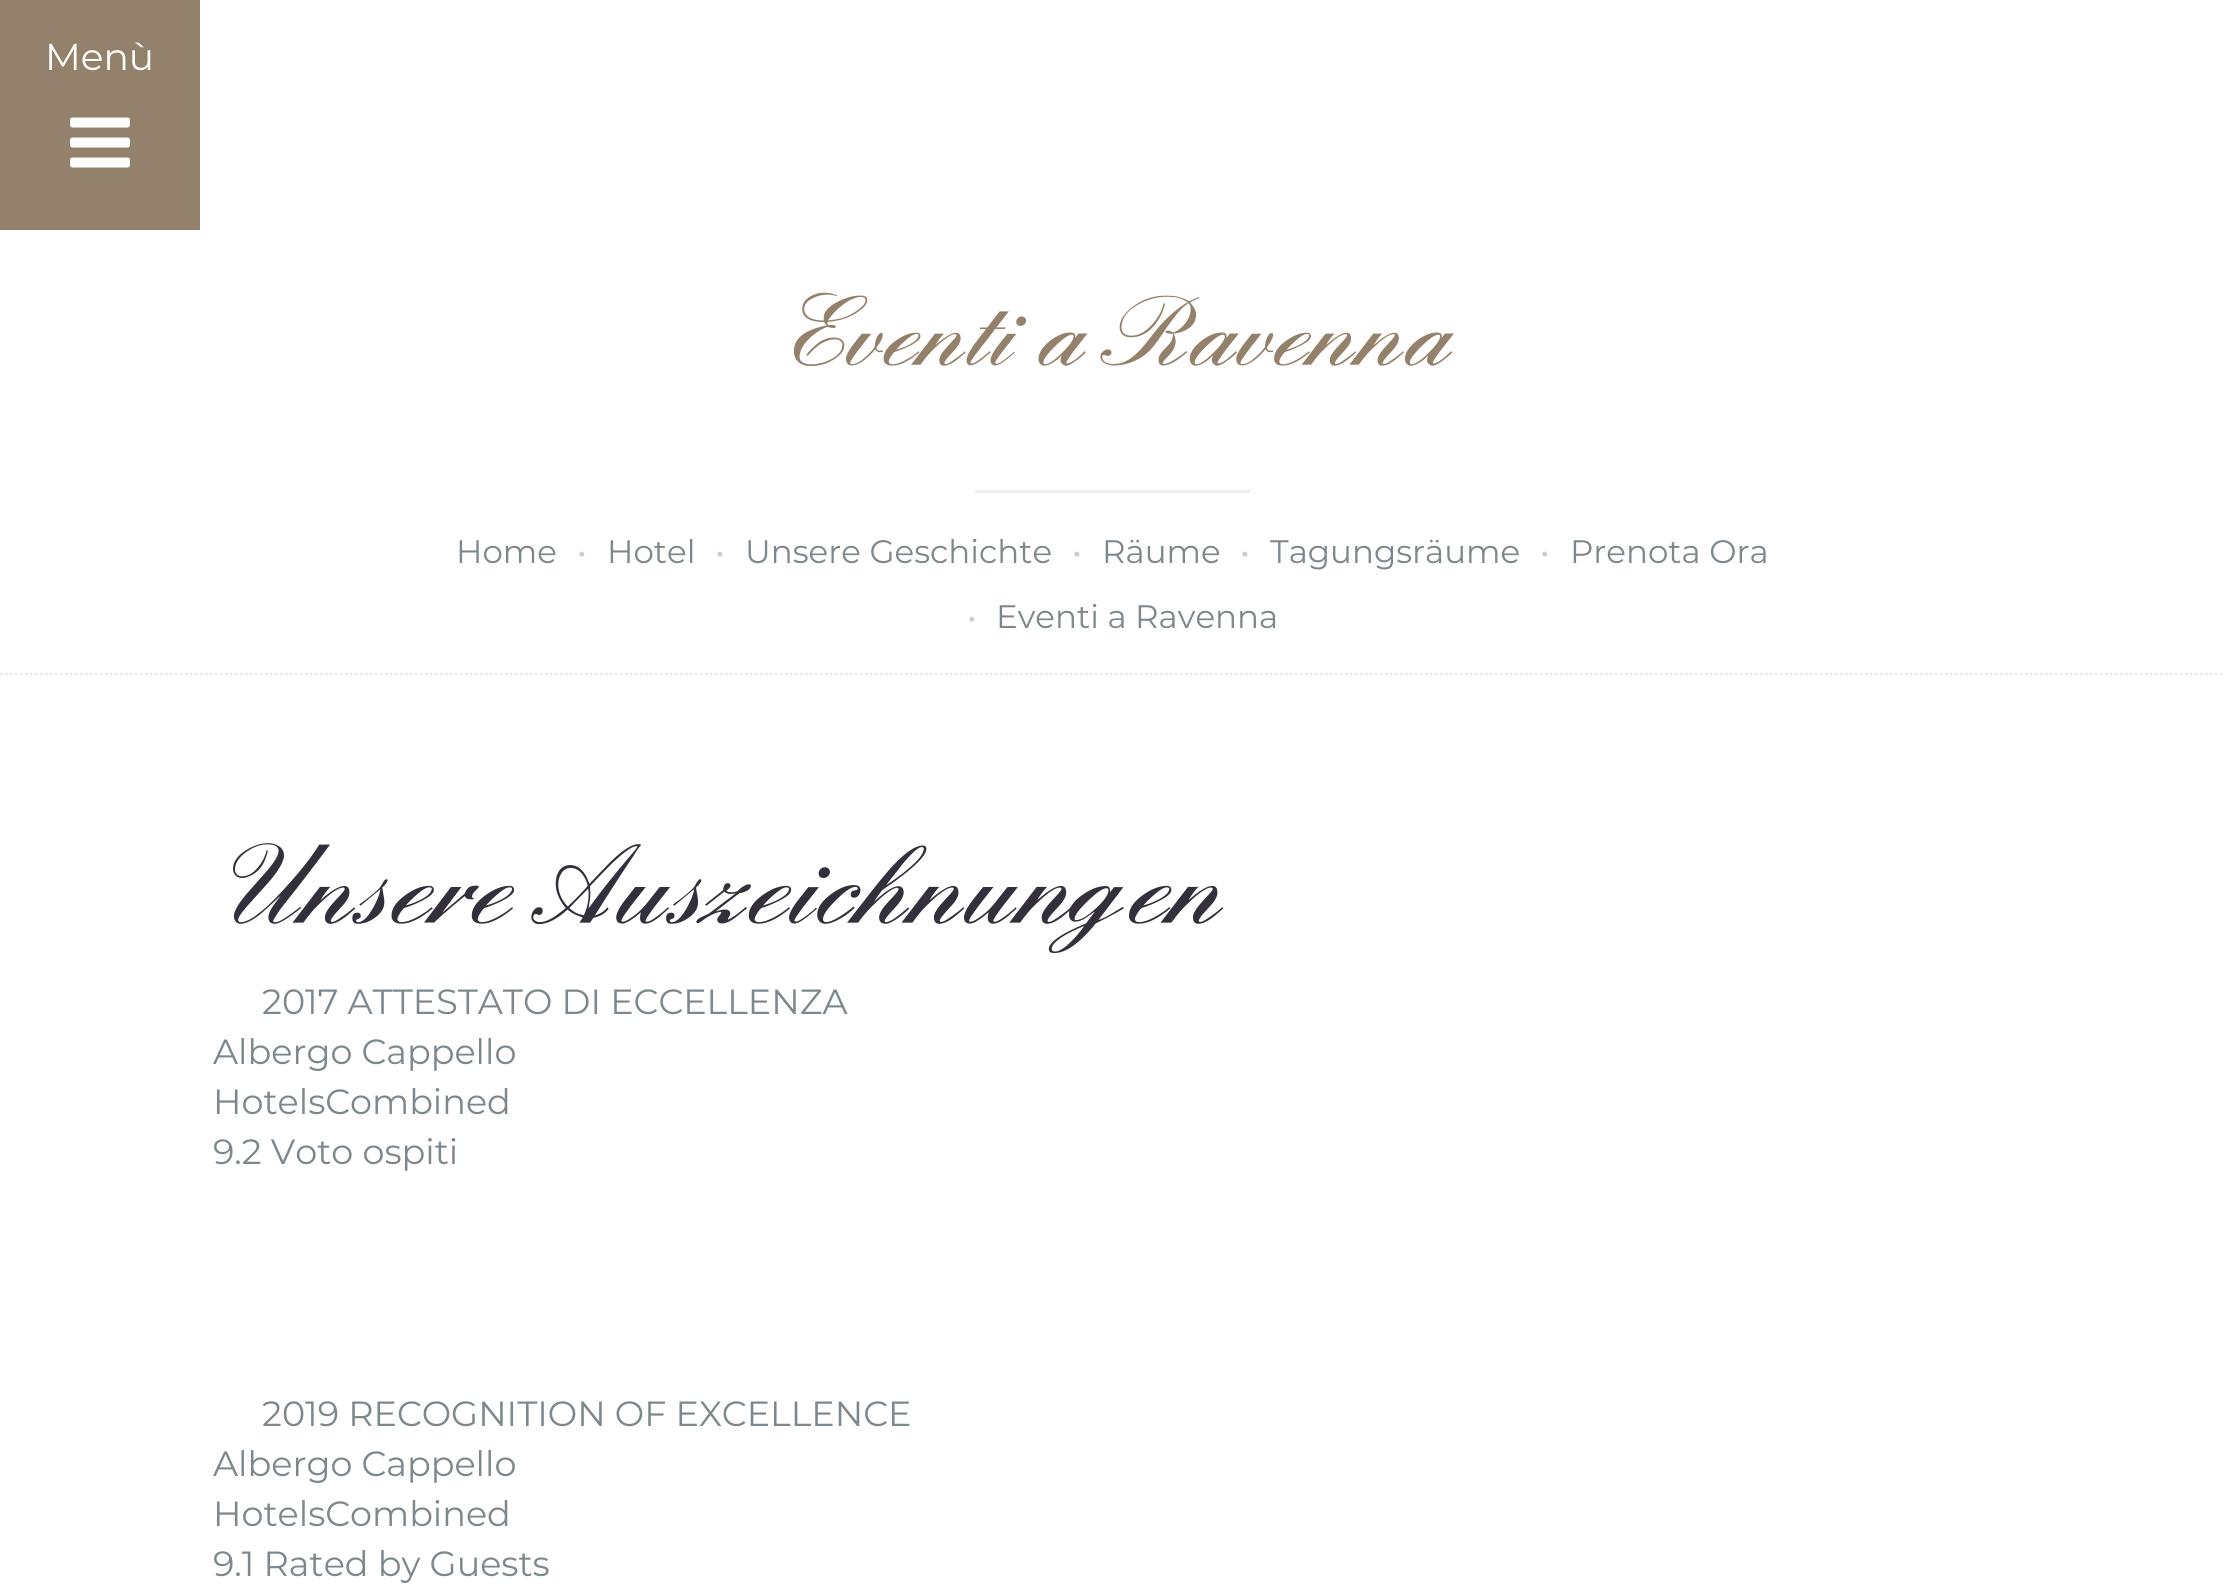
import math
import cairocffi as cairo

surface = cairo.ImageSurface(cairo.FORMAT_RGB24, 2224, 1590)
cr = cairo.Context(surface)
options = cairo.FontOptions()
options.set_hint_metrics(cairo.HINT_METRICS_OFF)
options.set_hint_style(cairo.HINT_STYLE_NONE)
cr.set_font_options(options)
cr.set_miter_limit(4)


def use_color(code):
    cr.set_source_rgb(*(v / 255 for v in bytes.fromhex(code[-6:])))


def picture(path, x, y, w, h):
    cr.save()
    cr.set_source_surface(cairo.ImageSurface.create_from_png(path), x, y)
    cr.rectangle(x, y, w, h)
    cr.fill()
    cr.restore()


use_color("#ffffff")
cr.paint()
cr.new_path()
cr.move_to(0, 674)
cr.line_to(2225, 674)
use_color("#eae6e2")
cr.set_line_width(2.5)
cr.set_dash([2.5, 2.5])
cr.stroke()
use_color("#94816c")
cr.rectangle(0, 0, 200, 230)
cr.fill()
cr.select_font_face("Montserrat")
cr.set_font_size(37.5)
use_color("#ffffff")
cr.move_to(45, 70)
cr.show_text("Menù")
picture("img1.png", 70, 117, 60, 51)
cr.select_font_face("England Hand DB")
cr.set_font_size(100)
use_color("#94816c")
cr.move_to(778, 365)
cr.show_text("Eventi a Ravenna")
use_color("#eeeeee")
cr.rectangle(975, 490, 275, 3)
cr.fill()
cr.select_font_face("Montserrat")
cr.set_font_size(32.5)
use_color("#7d888e")
cr.move_to(456, 563)
cr.show_text("Home")
use_color("#cccccc")
cr.move_to(577, 563)
cr.show_text("•")
use_color("#7d888e")
cr.move_to(607, 563)
cr.show_text("Hotel")
use_color("#cccccc")
cr.move_to(715, 563)
cr.show_text("•")
use_color("#7d888e")
cr.move_to(745, 563)
cr.show_text("Unsere Geschichte")
use_color("#cccccc")
cr.move_to(1072, 563)
cr.show_text("•")
use_color("#7d888e")
cr.move_to(1102, 563)
cr.show_text("Räume")
use_color("#cccccc")
cr.move_to(1240, 563)
cr.show_text("•")
use_color("#7d888e")
cr.move_to(1270, 563)
cr.show_text("Tagungsräume")
use_color("#cccccc")
cr.move_to(1540, 563)
cr.show_text("•")
use_color("#7d888e")
cr.move_to(1570, 563)
cr.show_text("Prenota Ora")
use_color("#cccccc")
cr.move_to(967, 628)
cr.show_text("•")
use_color("#7d888e")
cr.move_to(996, 628)
cr.show_text("Eventi a Ravenna")
use_color("#ffffff")
cr.rectangle(0, 675, 2223, 1)
cr.fill()
cr.select_font_face("England Hand DB")
cr.set_font_size(115)
use_color("#332f3b")
cr.move_to(213, 923)
cr.show_text("Unsere Auszeichnungen")
cr.select_font_face("Montserrat")
cr.set_font_size(35)
use_color("#7d888e")
cr.move_to(262, 1014)
cr.show_text("2017 ATTESTATO DI ECCELLENZA")
cr.move_to(213, 1064)
cr.show_text("Albergo Cappello")
cr.move_to(213, 1114)
cr.show_text("HotelsCombined")
cr.move_to(213, 1164)
cr.show_text("9.2 Voto ospiti")
cr.move_to(262, 1426)
cr.show_text("2019 RECOGNITION OF EXCELLENCE")
cr.move_to(213, 1476)
cr.show_text("Albergo Cappello")
cr.move_to(213, 1526)
cr.show_text("HotelsCombined")
cr.move_to(213, 1576)
cr.show_text("9.1 Rated by Guests")
surface.write_to_png("result.png")
